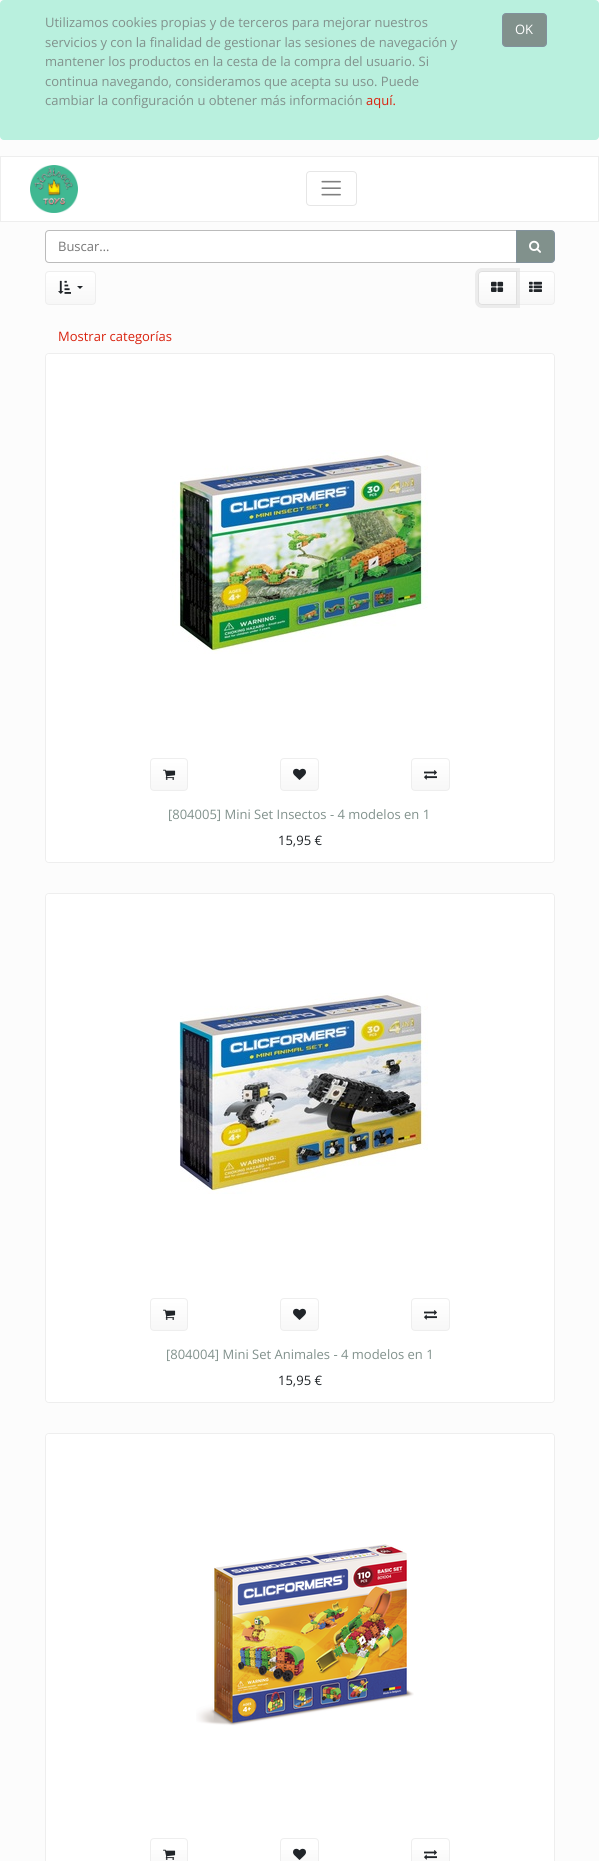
import math
import cairocffi as cairo

surface = cairo.ImageSurface(cairo.FORMAT_RGB24, 599, 1861)
cr = cairo.Context(surface)
options = cairo.FontOptions()
options.set_hint_metrics(cairo.HINT_METRICS_OFF)
options.set_hint_style(cairo.HINT_STYLE_NONE)
cr.set_font_options(options)
cr.set_miter_limit(4)


def use_color(code):
    cr.set_source_rgb(*(v / 255 for v in bytes.fromhex(code[-6:])))


def round_rect(x, y, w, h, r):
    cr.new_sub_path()
    for i, (u, v) in enumerate([(x + w - r, y + h - r), (x + r, y + h - r), (x + r, y + r), (x + w - r, y + r)]):
        cr.arc(u, v, r, i * math.pi / 2, (i + 1) * math.pi / 2)
    cr.close_path()


def picture(path, x, y, w, h):
    cr.save()
    cr.set_source_surface(cairo.ImageSurface.create_from_png(path), x, y)
    cr.rectangle(x, y, w, h)
    cr.fill()
    cr.restore()


use_color("#fcfcfc")
cr.paint()
use_color("#b9f0de")
round_rect(0.5, 0.5, 598, 139, 3.5)
cr.fill_preserve()
cr.set_line_width(1)
cr.stroke()
cr.select_font_face("Open Sans")
cr.set_font_size(13)
use_color("#81918c")
cr.move_to(45, 27)
cr.show_text("Utilizamos cookies propias y de terceros para mejorar nuestros")
cr.move_to(45, 47)
cr.show_text("servicios y con la finalidad de gestionar las sesiones de navegación y")
cr.move_to(45, 66)
cr.show_text("mantener los productos en la cesta de la compra del usuario. Si")
cr.move_to(45, 86)
cr.show_text("continua navegando, consideramos que acepta su uso. Puede")
cr.move_to(45, 105)
cr.show_text("cambiar la configuración u obtener más información")
use_color("#d9230f")
cr.move_to(366, 105)
cr.show_text("aquí.")
use_color("#81918c")
round_rect(502.5, 13.5, 44, 33, 3.5)
cr.fill_preserve()
use_color("#81919c")
cr.stroke()
use_color("#ffffff")
cr.move_to(515, 34)
cr.show_text("OK")
cr.rectangle(0.5, 156.5, 598, 65)
cr.fill_preserve()
use_color("#eeeeee")
cr.stroke()
picture("img1.png", 30, 165, 48, 48)
round_rect(306.5, 171.5, 50, 34, 3.5)
use_color("#e6e6e6")
cr.stroke()
picture("img2.png", 321, 180, 20, 16)
use_color("#ffffff")
cr.new_path()
cr.move_to(49, 230.5)
cr.line_to(516.5, 230.5)
cr.line_to(516.5, 262.5)
cr.line_to(49, 262.5)
cr.curve_to(47, 262.5, 45.5, 261, 45.5, 259)
cr.line_to(45.5, 234)
cr.curve_to(45.5, 232, 47, 230.5, 49, 230.5)
cr.close_path()
cr.fill_preserve()
use_color("#bbbbbb")
cr.stroke()
use_color("#777777")
cr.move_to(58, 251)
cr.show_text("Buscar…")
use_color("#81918c")
cr.new_path()
cr.move_to(516.5, 230.5)
cr.line_to(551, 230.5)
cr.curve_to(553, 230.5, 554.5, 232, 554.5, 234)
cr.line_to(554.5, 259)
cr.curve_to(554.5, 261, 553, 262.5, 551, 262.5)
cr.line_to(516.5, 262.5)
cr.close_path()
cr.fill_preserve()
use_color("#81919c")
cr.stroke()
picture("img3.png", 529, 240, 12, 13)
cr.save()
round_rect(45, 271, 51, 34, 4)
cr.clip()
gradient = cairo.LinearGradient(71, 272, 71, 304)
gradient.add_color_stop_rgba(0, 1, 1, 1, 1)
gradient.add_color_stop_rgba(0.06, 1, 1, 1, 1)
gradient.add_color_stop_rgba(1, 0.969, 0.969, 0.969, 1)
cr.set_source(gradient)
cr.rectangle(46, 272, 49, 32)
cr.fill()
cr.restore()
round_rect(45.5, 271.5, 50, 33, 3.5)
use_color("#eeeeee")
cr.stroke()
picture("img4.png", 58, 280, 13, 14)
use_color("#212529")
cr.new_path()
cr.move_to(77, 286)
cr.line_to(83, 286)
cr.line_to(80, 289)
cr.close_path()
cr.fill()
gradient = cairo.LinearGradient(536, 272, 536, 304)
gradient.add_color_stop_rgba(0, 1, 1, 1, 1)
gradient.add_color_stop_rgba(0.06, 1, 1, 1, 1)
gradient.add_color_stop_rgba(1, 0.969, 0.969, 0.969, 1)
cr.set_source(gradient)
cr.rectangle(517, 272, 37, 32)
cr.fill()
cr.new_path()
cr.move_to(516.5, 271.5)
cr.line_to(551, 271.5)
cr.curve_to(553, 271.5, 554.5, 273, 554.5, 275)
cr.line_to(554.5, 301)
cr.curve_to(554.5, 303, 553, 304.5, 551, 304.5)
cr.line_to(516.5, 304.5)
cr.close_path()
use_color("#eeeeee")
cr.stroke()
cr.new_path()
cr.move_to(482, 269.5)
cr.line_to(518.5, 269.5)
cr.line_to(518.5, 306.5)
cr.line_to(482, 306.5)
cr.curve_to(479, 306.5, 476.5, 304, 476.5, 301)
cr.line_to(476.5, 275)
cr.curve_to(476.5, 272, 479, 269.5, 482, 269.5)
cr.close_path()
cr.set_source_rgba(0.867, 0.867, 0.867, 0.5)
cr.set_line_width(3)
cr.stroke()
gradient = cairo.LinearGradient(498, 272, 498, 304)
gradient.add_color_stop_rgba(0, 1, 1, 1, 1)
gradient.add_color_stop_rgba(0.06, 1, 1, 1, 1)
gradient.add_color_stop_rgba(1, 0.969, 0.969, 0.969, 1)
cr.set_source(gradient)
cr.rectangle(479, 272, 37, 32)
cr.fill()
cr.new_path()
cr.move_to(482, 271.5)
cr.line_to(516.5, 271.5)
cr.line_to(516.5, 304.5)
cr.line_to(482, 304.5)
cr.curve_to(480, 304.5, 478.5, 303, 478.5, 301)
cr.line_to(478.5, 275)
cr.curve_to(478.5, 273, 480, 271.5, 482, 271.5)
cr.close_path()
use_color("#dfdfdf")
cr.set_line_width(1)
cr.stroke()
picture("img5.png", 491, 281, 13, 11)
picture("img6.png", 529, 281, 13, 11)
use_color("#d9230f")
cr.move_to(58, 341)
cr.show_text("Mostrar categorías")
use_color("#ffffff")
round_rect(45.5, 353.5, 509, 509, 3.5)
cr.fill_preserve()
use_color("#eeeeee")
cr.stroke()
cr.set_source_rgba(1, 1, 1, 0.9)
cr.new_path()
cr.move_to(49, 354)
cr.line_to(551, 354)
cr.curve_to(552.5, 354, 554, 355.5, 554, 357)
cr.line_to(554, 750)
cr.line_to(46, 750)
cr.line_to(46, 357)
cr.curve_to(46, 355.5, 47.5, 354, 49, 354)
cr.close_path()
cr.fill()
picture("img7.png", 172, 450, 256, 204)
cr.new_path()
cr.move_to(46, 750)
cr.line_to(554, 750)
cr.line_to(554, 859)
cr.curve_to(554, 860.5, 552.5, 862, 551, 862)
cr.line_to(49, 862)
cr.curve_to(47.5, 862, 46, 860.5, 46, 859)
cr.close_path()
cr.fill()
cr.save()
round_rect(150, 758, 38, 33, 4)
cr.clip()
gradient = cairo.LinearGradient(169, 759, 169, 790)
gradient.add_color_stop_rgba(0, 1, 1, 1, 1)
gradient.add_color_stop_rgba(0.06, 1, 1, 1, 1)
gradient.add_color_stop_rgba(1, 0.969, 0.969, 0.969, 1)
cr.set_source(gradient)
cr.rectangle(151, 759, 36, 31)
cr.fill()
cr.restore()
round_rect(150.5, 758.5, 37, 32, 3.5)
use_color("#eeeeee")
cr.stroke()
picture("img8.png", 163, 769, 13, 11)
cr.save()
round_rect(280, 758, 39, 33, 4)
cr.clip()
gradient = cairo.LinearGradient(300, 759, 300, 790)
gradient.add_color_stop_rgba(0, 1, 1, 1, 1)
gradient.add_color_stop_rgba(0.06, 1, 1, 1, 1)
gradient.add_color_stop_rgba(1, 0.969, 0.969, 0.969, 1)
cr.set_source(gradient)
cr.rectangle(281, 759, 37, 31)
cr.fill()
cr.restore()
round_rect(280.5, 758.5, 38, 32, 3.5)
cr.stroke()
picture("img9.png", 293, 768, 13, 12)
cr.save()
round_rect(411, 758, 39, 33, 4)
cr.clip()
gradient = cairo.LinearGradient(431, 759, 431, 790)
gradient.add_color_stop_rgba(0, 1, 1, 1, 1)
gradient.add_color_stop_rgba(0.06, 1, 1, 1, 1)
gradient.add_color_stop_rgba(1, 0.969, 0.969, 0.969, 1)
cr.set_source(gradient)
cr.rectangle(412, 759, 37, 31)
cr.fill()
cr.restore()
round_rect(411.5, 758.5, 38, 32, 3.5)
cr.stroke()
picture("img10.png", 424, 770, 13, 10)
use_color("#81918c")
cr.move_to(168, 819)
cr.show_text("[804005] Mini Set Insectos - 4 modelos en 1")
use_color("#212529")
cr.move_to(278, 845)
cr.show_text("15,95 €")
use_color("#ffffff")
round_rect(45.5, 893.5, 509, 509, 3.5)
cr.fill_preserve()
use_color("#eeeeee")
cr.stroke()
cr.set_source_rgba(1, 1, 1, 0.9)
cr.new_path()
cr.move_to(49, 894)
cr.line_to(551, 894)
cr.curve_to(552.5, 894, 554, 895.5, 554, 897)
cr.line_to(554, 1290)
cr.line_to(46, 1290)
cr.line_to(46, 897)
cr.curve_to(46, 895.5, 47.5, 894, 49, 894)
cr.close_path()
cr.fill()
picture("img11.png", 179, 993, 249, 201)
cr.new_path()
cr.move_to(46, 1290)
cr.line_to(554, 1290)
cr.line_to(554, 1399)
cr.curve_to(554, 1400.5, 552.5, 1402, 551, 1402)
cr.line_to(49, 1402)
cr.curve_to(47.5, 1402, 46, 1400.5, 46, 1399)
cr.close_path()
cr.fill()
cr.save()
round_rect(150, 1298, 38, 33, 4)
cr.clip()
gradient = cairo.LinearGradient(169, 1299, 169, 1330)
gradient.add_color_stop_rgba(0, 1, 1, 1, 1)
gradient.add_color_stop_rgba(0.06, 1, 1, 1, 1)
gradient.add_color_stop_rgba(1, 0.969, 0.969, 0.969, 1)
cr.set_source(gradient)
cr.rectangle(151, 1299, 36, 31)
cr.fill()
cr.restore()
round_rect(150.5, 1298.5, 37, 32, 3.5)
use_color("#eeeeee")
cr.stroke()
picture("img8.png", 163, 1309, 13, 11)
cr.save()
round_rect(280, 1298, 39, 33, 4)
cr.clip()
gradient = cairo.LinearGradient(300, 1299, 300, 1330)
gradient.add_color_stop_rgba(0, 1, 1, 1, 1)
gradient.add_color_stop_rgba(0.06, 1, 1, 1, 1)
gradient.add_color_stop_rgba(1, 0.969, 0.969, 0.969, 1)
cr.set_source(gradient)
cr.rectangle(281, 1299, 37, 31)
cr.fill()
cr.restore()
round_rect(280.5, 1298.5, 38, 32, 3.5)
cr.stroke()
picture("img9.png", 293, 1308, 13, 12)
cr.save()
round_rect(411, 1298, 39, 33, 4)
cr.clip()
gradient = cairo.LinearGradient(431, 1299, 431, 1330)
gradient.add_color_stop_rgba(0, 1, 1, 1, 1)
gradient.add_color_stop_rgba(0.06, 1, 1, 1, 1)
gradient.add_color_stop_rgba(1, 0.969, 0.969, 0.969, 1)
cr.set_source(gradient)
cr.rectangle(412, 1299, 37, 31)
cr.fill()
cr.restore()
round_rect(411.5, 1298.5, 38, 32, 3.5)
cr.stroke()
picture("img10.png", 424, 1310, 13, 10)
use_color("#81918c")
cr.move_to(166, 1359)
cr.show_text("[804004] Mini Set Animales - 4 modelos en 1")
use_color("#212529")
cr.move_to(278, 1385)
cr.show_text("15,95 €")
use_color("#ffffff")
round_rect(45.5, 1433.5, 509, 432, 3.5)
cr.fill_preserve()
use_color("#eeeeee")
cr.stroke()
cr.set_source_rgba(1, 1, 1, 0.9)
cr.new_path()
cr.move_to(49, 1434)
cr.line_to(551, 1434)
cr.curve_to(552.5, 1434, 554, 1435.5, 554, 1437)
cr.line_to(554, 1830)
cr.line_to(46, 1830)
cr.line_to(46, 1437)
cr.curve_to(46, 1435.5, 47.5, 1434, 49, 1434)
cr.close_path()
cr.fill()
picture("img12.png", 196, 1544, 218, 182)
gradient = cairo.LinearGradient(169, 1839, 169, 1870)
gradient.add_color_stop_rgba(0, 1, 1, 1, 1)
gradient.add_color_stop_rgba(0.06, 1, 1, 1, 1)
gradient.add_color_stop_rgba(1, 0.969, 0.969, 0.969, 1)
cr.set_source(gradient)
cr.rectangle(151, 1850, 36, 11)
cr.fill()
round_rect(150.5, 1838.5, 37, 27, 3.5)
use_color("#eeeeee")
cr.stroke()
picture("img8.png", 163, 1849, 13, 11)
gradient = cairo.LinearGradient(300, 1839, 300, 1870)
gradient.add_color_stop_rgba(0, 1, 1, 1, 1)
gradient.add_color_stop_rgba(0.06, 1, 1, 1, 1)
gradient.add_color_stop_rgba(1, 0.969, 0.969, 0.969, 1)
cr.set_source(gradient)
cr.rectangle(281, 1850, 37, 11)
cr.fill()
round_rect(280.5, 1838.5, 38, 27, 3.5)
use_color("#eeeeee")
cr.stroke()
picture("img9.png", 293, 1848, 13, 12)
gradient = cairo.LinearGradient(431, 1839, 431, 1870)
gradient.add_color_stop_rgba(0, 1, 1, 1, 1)
gradient.add_color_stop_rgba(0.06, 1, 1, 1, 1)
gradient.add_color_stop_rgba(1, 0.969, 0.969, 0.969, 1)
cr.set_source(gradient)
cr.rectangle(412, 1850, 37, 11)
cr.fill()
round_rect(411.5, 1838.5, 38, 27, 3.5)
use_color("#eeeeee")
cr.stroke()
picture("img10.png", 424, 1850, 13, 10)
surface.write_to_png("result.png")
